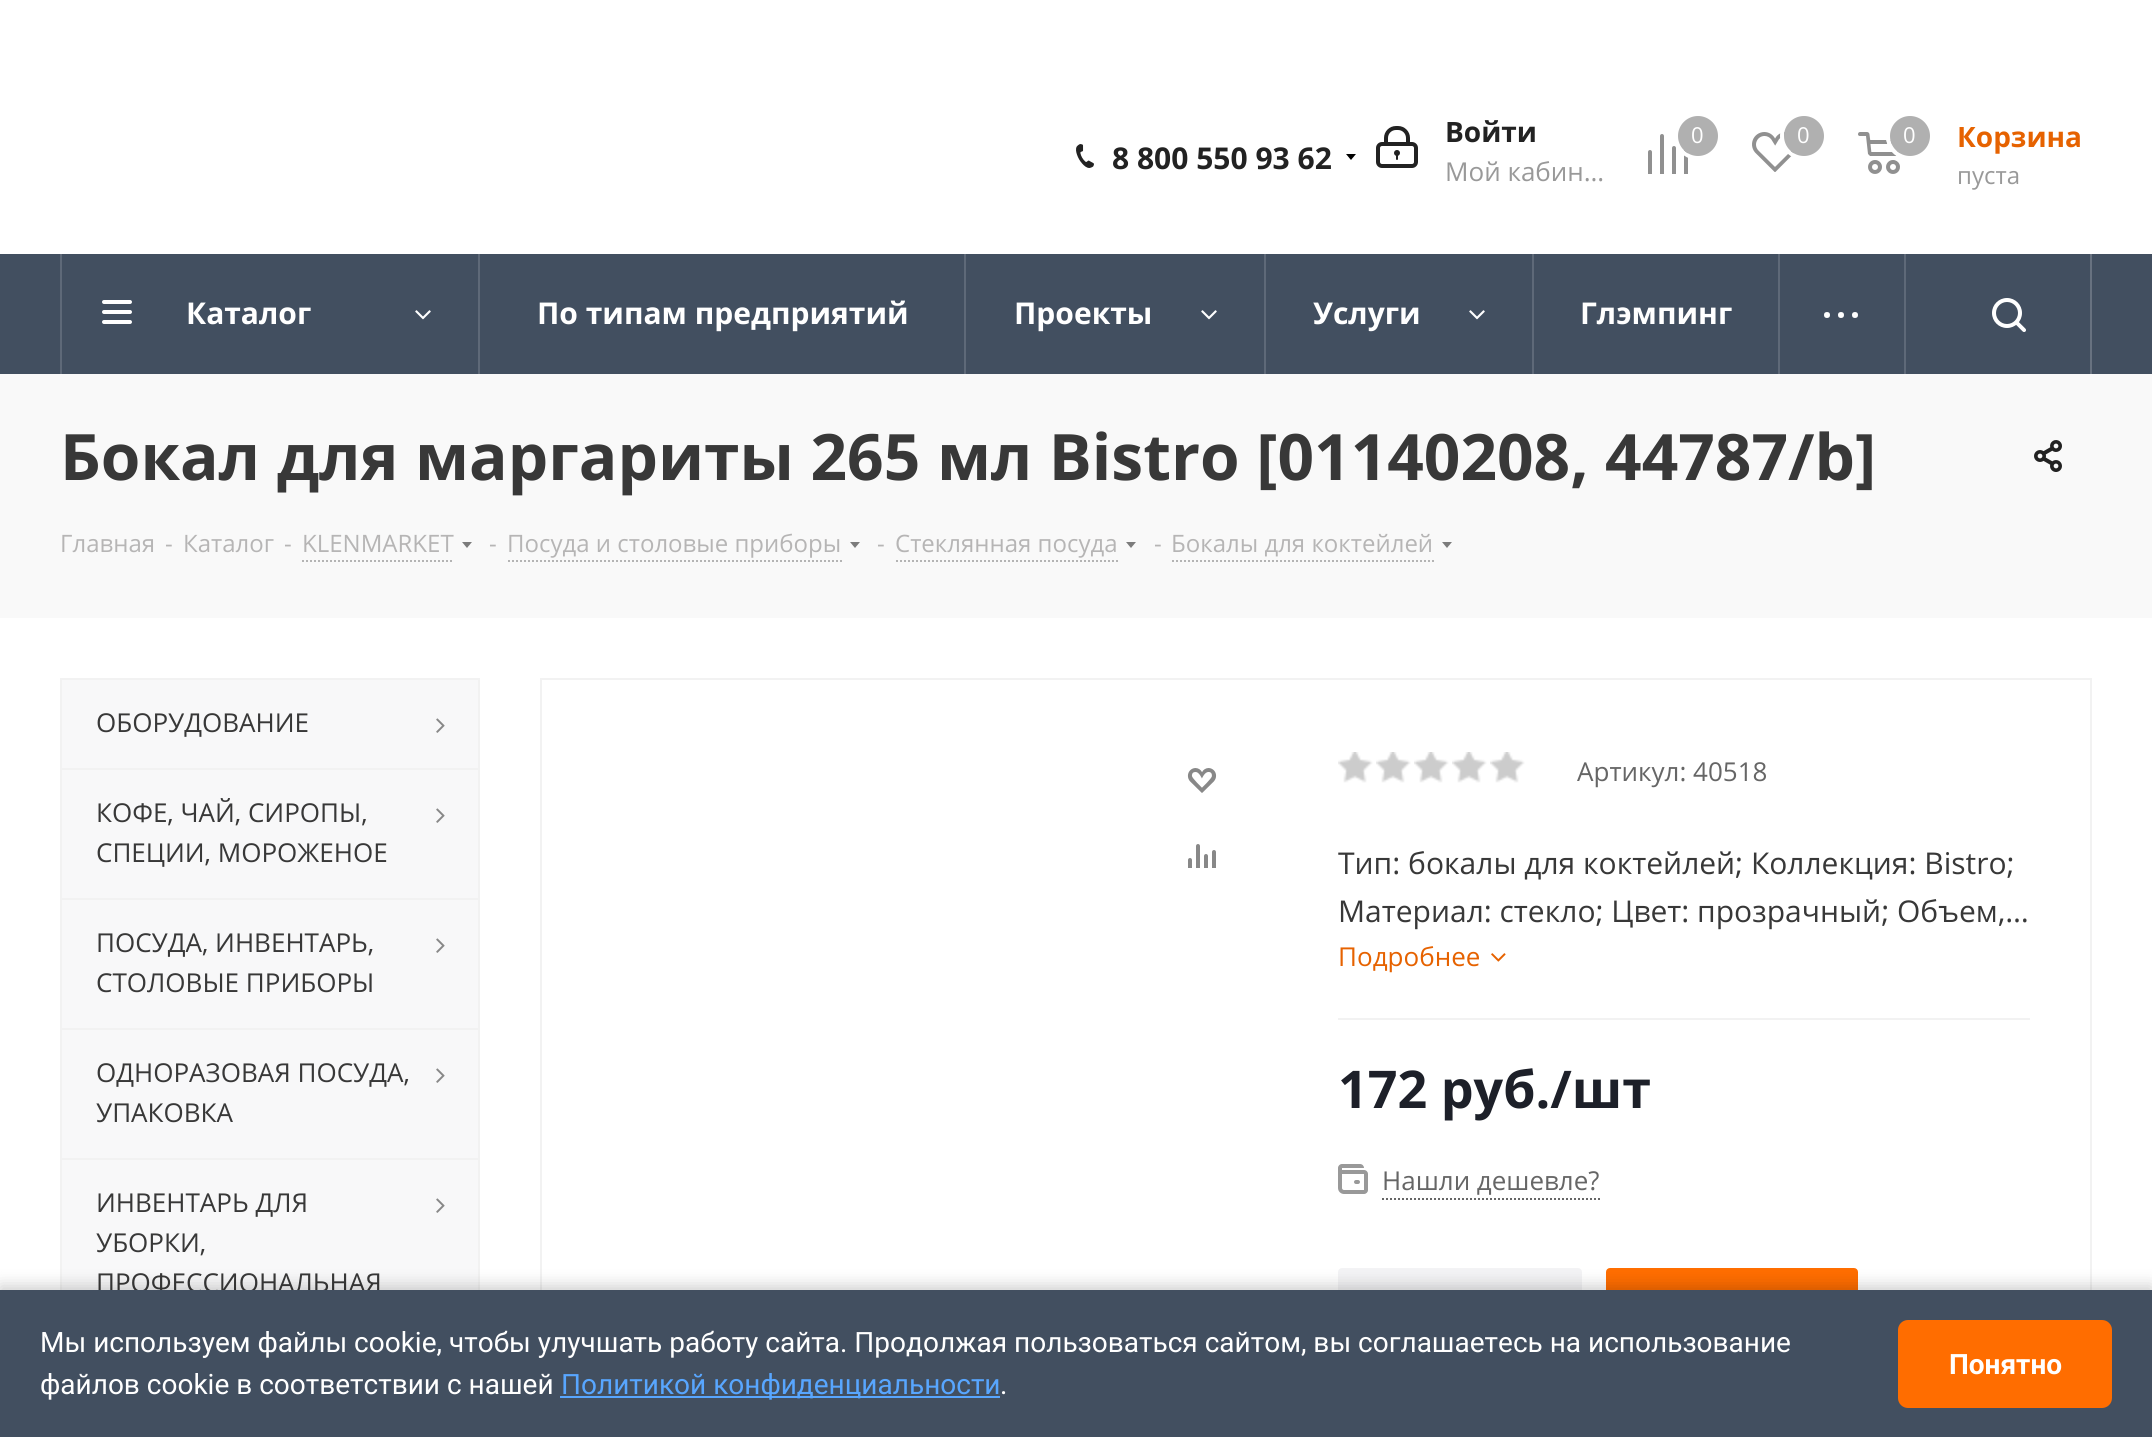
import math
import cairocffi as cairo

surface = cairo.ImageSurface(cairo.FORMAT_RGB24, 2152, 1437)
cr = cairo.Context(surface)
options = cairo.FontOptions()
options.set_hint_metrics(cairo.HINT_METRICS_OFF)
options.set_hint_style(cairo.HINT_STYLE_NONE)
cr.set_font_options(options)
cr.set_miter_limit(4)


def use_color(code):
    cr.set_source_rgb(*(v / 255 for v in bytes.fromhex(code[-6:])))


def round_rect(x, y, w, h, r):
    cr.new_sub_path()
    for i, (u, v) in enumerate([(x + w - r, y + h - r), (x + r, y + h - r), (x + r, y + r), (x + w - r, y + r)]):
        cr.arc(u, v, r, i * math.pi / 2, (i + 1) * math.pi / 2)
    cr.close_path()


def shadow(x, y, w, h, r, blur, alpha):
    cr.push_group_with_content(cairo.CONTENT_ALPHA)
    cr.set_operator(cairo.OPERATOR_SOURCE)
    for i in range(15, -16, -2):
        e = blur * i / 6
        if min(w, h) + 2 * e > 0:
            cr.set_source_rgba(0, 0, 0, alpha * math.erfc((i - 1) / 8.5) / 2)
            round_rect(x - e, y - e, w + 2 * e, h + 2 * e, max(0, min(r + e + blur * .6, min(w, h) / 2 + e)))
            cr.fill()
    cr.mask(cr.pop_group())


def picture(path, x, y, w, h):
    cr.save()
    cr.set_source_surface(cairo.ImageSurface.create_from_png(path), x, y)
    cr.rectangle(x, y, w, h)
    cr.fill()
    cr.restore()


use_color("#ffffff")
cr.paint()
picture("img1.png", 1076, 144, 18, 24)
cr.select_font_face("Open Sans", cairo.FONT_SLANT_NORMAL, cairo.FONT_WEIGHT_BOLD)
cr.set_font_size(30)
use_color("#222222")
cr.move_to(1112, 169)
cr.show_text("8 800 550 93 62")
picture("img2.png", 1346, 154, 10, 6)
picture("img3.png", 1376, 126, 42, 42)
cr.set_font_size(28)
cr.move_to(1445, 142)
cr.show_text("Войти")
cr.select_font_face("Open Sans")
cr.set_font_size(26)
use_color("#999999")
cr.move_to(1445, 181)
cr.show_text("Мой кабин…")
picture("img4.png", 1648, 134, 40, 40)
cr.arc(1698, 136, 22, 0, 2 * math.pi)
use_color("#ffffff")
cr.set_line_width(4)
cr.stroke()
use_color("#b0b0b0")
cr.arc(1698, 136, 20, 0, 2 * math.pi)
cr.fill()
cr.set_font_size(22)
use_color("#ffffff")
cr.move_to(1691, 143)
cr.show_text("0")
picture("img5.png", 1752, 132, 43, 40)
cr.arc(1804, 136, 22, 0, 2 * math.pi)
cr.stroke()
use_color("#b0b0b0")
cr.arc(1804, 136, 20, 0, 2 * math.pi)
cr.fill()
use_color("#ffffff")
cr.move_to(1797, 143)
cr.show_text("0")
picture("img6.png", 1858, 132, 43, 42)
cr.arc(1910, 136, 22, 0, 2 * math.pi)
cr.stroke()
cr.arc(1910, 136, 22, 0, 2 * math.pi)
cr.stroke()
use_color("#b0b0b0")
cr.arc(1910, 136, 20, 0, 2 * math.pi)
cr.fill()
use_color("#ffffff")
cr.move_to(1903, 143)
cr.show_text("0")
cr.select_font_face("Open Sans", cairo.FONT_SLANT_NORMAL, cairo.FONT_WEIGHT_BOLD)
cr.set_font_size(28)
use_color("#e66200")
cr.move_to(1957, 147)
cr.show_text("Корзина")
cr.select_font_face("Open Sans")
cr.set_font_size(24)
use_color("#999999")
cr.move_to(1957, 184)
cr.show_text("пуста")
use_color("#424f60")
cr.rectangle(0, 254, 2152, 120)
cr.fill()
use_color("#5e6978")
cr.rectangle(60, 254, 2, 120)
cr.fill()
cr.rectangle(478, 254, 2, 120)
cr.fill()
picture("img7.png", 102, 300, 30, 24)
cr.select_font_face("Open Sans", cairo.FONT_SLANT_NORMAL, cairo.FONT_WEIGHT_BOLD)
cr.set_font_size(30)
use_color("#ffffff")
cr.move_to(186, 324)
cr.show_text("Каталог")
picture("img8.png", 415, 310, 16, 10)
use_color("#5e6978")
cr.rectangle(964, 254, 2, 120)
cr.fill()
use_color("#ffffff")
cr.move_to(537, 324)
cr.show_text("По типам предприятий")
use_color("#5e6978")
cr.rectangle(1264, 254, 2, 120)
cr.fill()
use_color("#ffffff")
cr.move_to(1014, 324)
cr.show_text("Проекты")
picture("img8.png", 1201, 310, 16, 10)
use_color("#5e6978")
cr.rectangle(1532, 254, 2, 120)
cr.fill()
use_color("#ffffff")
cr.move_to(1313, 324)
cr.show_text("Услуги")
picture("img8.png", 1469, 310, 16, 10)
use_color("#5e6978")
cr.rectangle(1778, 254, 2, 120)
cr.fill()
use_color("#ffffff")
cr.move_to(1580, 324)
cr.show_text("Глэмпинг")
use_color("#5e6978")
cr.rectangle(1904, 254, 2, 120)
cr.fill()
picture("img9.png", 1824, 312, 34, 6)
use_color("#687280")
cr.rectangle(2090, 254, 2, 120)
cr.fill()
picture("img10.png", 1992, 298, 34, 34)
use_color("#f9f9f9")
cr.rectangle(0, 374, 2152, 244)
cr.fill()
cr.set_font_size(64)
use_color("#383838")
cr.move_to(60, 480)
cr.show_text("Бокал для маргариты 265 мл Bistro [01140208, 44787/b]")
picture("img11.png", 2034, 440, 28, 32)
cr.select_font_face("Open Sans")
cr.set_font_size(24)
use_color("#b6b5b5")
cr.move_to(60, 552)
cr.show_text("Главная")
cr.move_to(165, 552)
cr.show_text("-")
cr.move_to(183, 552)
cr.show_text("Каталог")
cr.move_to(284, 552)
cr.show_text("-")
cr.move_to(302, 552)
cr.show_text("KLENMARKET")
cr.new_path()
cr.move_to(302, 561)
cr.line_to(454, 561)
use_color("#b4b4b4")
cr.set_line_width(2)
cr.set_dash([2, 2])
cr.stroke()
picture("img12.png", 462, 542, 10, 6)
use_color("#b6b5b5")
cr.move_to(489, 552)
cr.show_text("-")
cr.move_to(507, 552)
cr.show_text("Посуда и столовые приборы")
cr.new_path()
cr.move_to(508, 561)
cr.line_to(842, 561)
use_color("#b4b4b4")
cr.stroke()
picture("img12.png", 850, 542, 10, 6)
use_color("#b6b5b5")
cr.move_to(877, 552)
cr.show_text("-")
cr.move_to(895, 552)
cr.show_text("Стеклянная посуда")
cr.new_path()
cr.move_to(896, 561)
cr.line_to(1118, 561)
use_color("#b4b4b4")
cr.stroke()
picture("img12.png", 1126, 542, 10, 6)
use_color("#b6b5b5")
cr.move_to(1154, 552)
cr.show_text("-")
cr.move_to(1171, 552)
cr.show_text("Бокалы для коктейлей")
cr.new_path()
cr.move_to(1172, 561)
cr.line_to(1434, 561)
use_color("#b4b4b4")
cr.stroke()
picture("img12.png", 1442, 542, 10, 6)
use_color("#f8f8f9")
cr.rectangle(62, 680, 416, 88)
cr.fill()
use_color("#f2f2f2")
cr.rectangle(60, 678, 420, 2)
cr.fill()
cr.rectangle(478, 678, 2, 90)
cr.fill()
cr.rectangle(60, 678, 2, 90)
cr.fill()
cr.set_font_size(26)
use_color("#383838")
cr.move_to(96, 732)
cr.show_text("ОБОРУДОВАНИЕ")
picture("img13.png", 436, 718, 9, 15)
use_color("#f8f8f9")
cr.rectangle(62, 770, 416, 128)
cr.fill()
use_color("#f2f2f2")
cr.rectangle(60, 768, 420, 2)
cr.fill()
cr.rectangle(478, 768, 2, 130)
cr.fill()
cr.rectangle(60, 768, 2, 130)
cr.fill()
use_color("#383838")
cr.move_to(96, 822)
cr.show_text("КОФЕ, ЧАЙ, СИРОПЫ,")
picture("img13.png", 436, 808, 9, 15)
cr.move_to(96, 862)
cr.show_text("СПЕЦИИ, МОРОЖЕНОЕ")
use_color("#f8f8f9")
cr.rectangle(62, 900, 416, 128)
cr.fill()
use_color("#f2f2f2")
cr.rectangle(60, 898, 420, 2)
cr.fill()
cr.rectangle(478, 898, 2, 130)
cr.fill()
cr.rectangle(60, 898, 2, 130)
cr.fill()
use_color("#383838")
cr.move_to(96, 952)
cr.show_text("ПОСУДА, ИНВЕНТАРЬ,")
picture("img13.png", 436, 938, 9, 15)
cr.move_to(96, 992)
cr.show_text("СТОЛОВЫЕ ПРИБОРЫ")
use_color("#f8f8f9")
cr.rectangle(62, 1030, 416, 128)
cr.fill()
use_color("#f2f2f2")
cr.rectangle(60, 1028, 420, 2)
cr.fill()
cr.rectangle(478, 1028, 2, 130)
cr.fill()
cr.rectangle(60, 1028, 2, 130)
cr.fill()
use_color("#383838")
cr.move_to(96, 1082)
cr.show_text("ОДНОРАЗОВАЯ ПОСУДА,")
picture("img13.png", 436, 1068, 9, 15)
cr.move_to(96, 1122)
cr.show_text("УПАКОВКА")
use_color("#f8f8f9")
cr.rectangle(62, 1160, 416, 130)
cr.fill()
use_color("#f2f2f2")
cr.rectangle(60, 1158, 420, 2)
cr.fill()
cr.rectangle(478, 1158, 2, 132)
cr.fill()
cr.rectangle(60, 1158, 2, 132)
cr.fill()
use_color("#383838")
cr.move_to(96, 1212)
cr.show_text("ИНВЕНТАРЬ ДЛЯ")
picture("img13.png", 436, 1198, 9, 15)
cr.move_to(96, 1252)
cr.show_text("УБОРКИ,")
cr.move_to(96, 1292)
cr.show_text("ПРОФЕССИОНАЛЬНАЯ")
cr.rectangle(541, 679, 1550, 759)
use_color("#f2f2f2")
cr.set_dash([])
cr.stroke()
picture("img14.png", 1187, 768, 30, 25)
picture("img15.png", 1188, 844, 28, 24)
cr.rectangle(1338, 1018, 692, 2)
cr.fill()
picture("img16.png", 1338, 752, 35, 31)
picture("img16.png", 1376, 752, 35, 31)
picture("img16.png", 1414, 752, 35, 31)
picture("img16.png", 1452, 752, 35, 31)
picture("img16.png", 1490, 752, 35, 31)
use_color("#666666")
cr.move_to(1577, 781)
cr.show_text("Артикул: 40518")
cr.set_font_size(30)
use_color("#383838")
cr.move_to(1338, 874)
cr.show_text("Тип: бокалы для коктейлей; Коллекция: Bistro;")
cr.move_to(1338, 922)
cr.show_text("Материал: стекло; Цвет: прозрачный; Объем,…")
cr.set_font_size(26)
use_color("#e66200")
cr.move_to(1338, 966)
cr.show_text("Подробнее")
picture("img17.png", 1491, 953, 15, 9)
cr.select_font_face("Open Sans", cairo.FONT_SLANT_NORMAL, cairo.FONT_WEIGHT_BOLD)
cr.set_font_size(52)
use_color("#1d2029")
cr.move_to(1338, 1108)
cr.show_text("172 руб./шт")
picture("img18.png", 1338, 1164, 30, 30)
cr.select_font_face("Open Sans")
cr.set_font_size(26)
use_color("#666666")
cr.move_to(1382, 1190)
cr.show_text("Нашли дешевле?")
cr.new_path()
cr.move_to(1382, 1199)
cr.line_to(1600, 1199)
cr.set_dash([2, 2])
cr.stroke()
use_color("#f3f3f5")
round_rect(1339, 1269, 242, 78, 3)
cr.fill_preserve()
cr.set_dash([])
cr.stroke()
use_color("#ff6d00")
round_rect(1607, 1269, 250, 78, 3)
cr.fill_preserve()
cr.stroke()
use_color("#000000")
shadow(0, 1286, 2152, 148, 0, 8, 0.2)
use_color("#424f60")
cr.rectangle(0, 1290, 2152, 147)
cr.fill()
cr.select_font_face("Roboto")
cr.set_font_size(28)
use_color("#ffffff")
cr.move_to(40, 1352)
cr.show_text("Мы используем файлы cookie, чтобы улучшать работу сайта. Продолжая пользоваться сайтом, вы соглашаетесь на использование")
cr.move_to(40, 1394)
cr.show_text("файлов cookie в соответствии с нашей")
use_color("#58a6ff")
cr.rectangle(560, 1396, 440, 2)
cr.fill()
cr.move_to(561, 1394)
cr.show_text("Политикой конфиденциальности")
use_color("#ffffff")
cr.move_to(1000, 1394)
cr.show_text(".")
use_color("#ff6d00")
round_rect(1898, 1320, 214, 88, 10)
cr.fill()
cr.select_font_face("Roboto", cairo.FONT_SLANT_NORMAL, cairo.FONT_WEIGHT_BOLD)
use_color("#ffffff")
cr.move_to(1949, 1374)
cr.show_text("Понятно")
surface.write_to_png("result.png")
